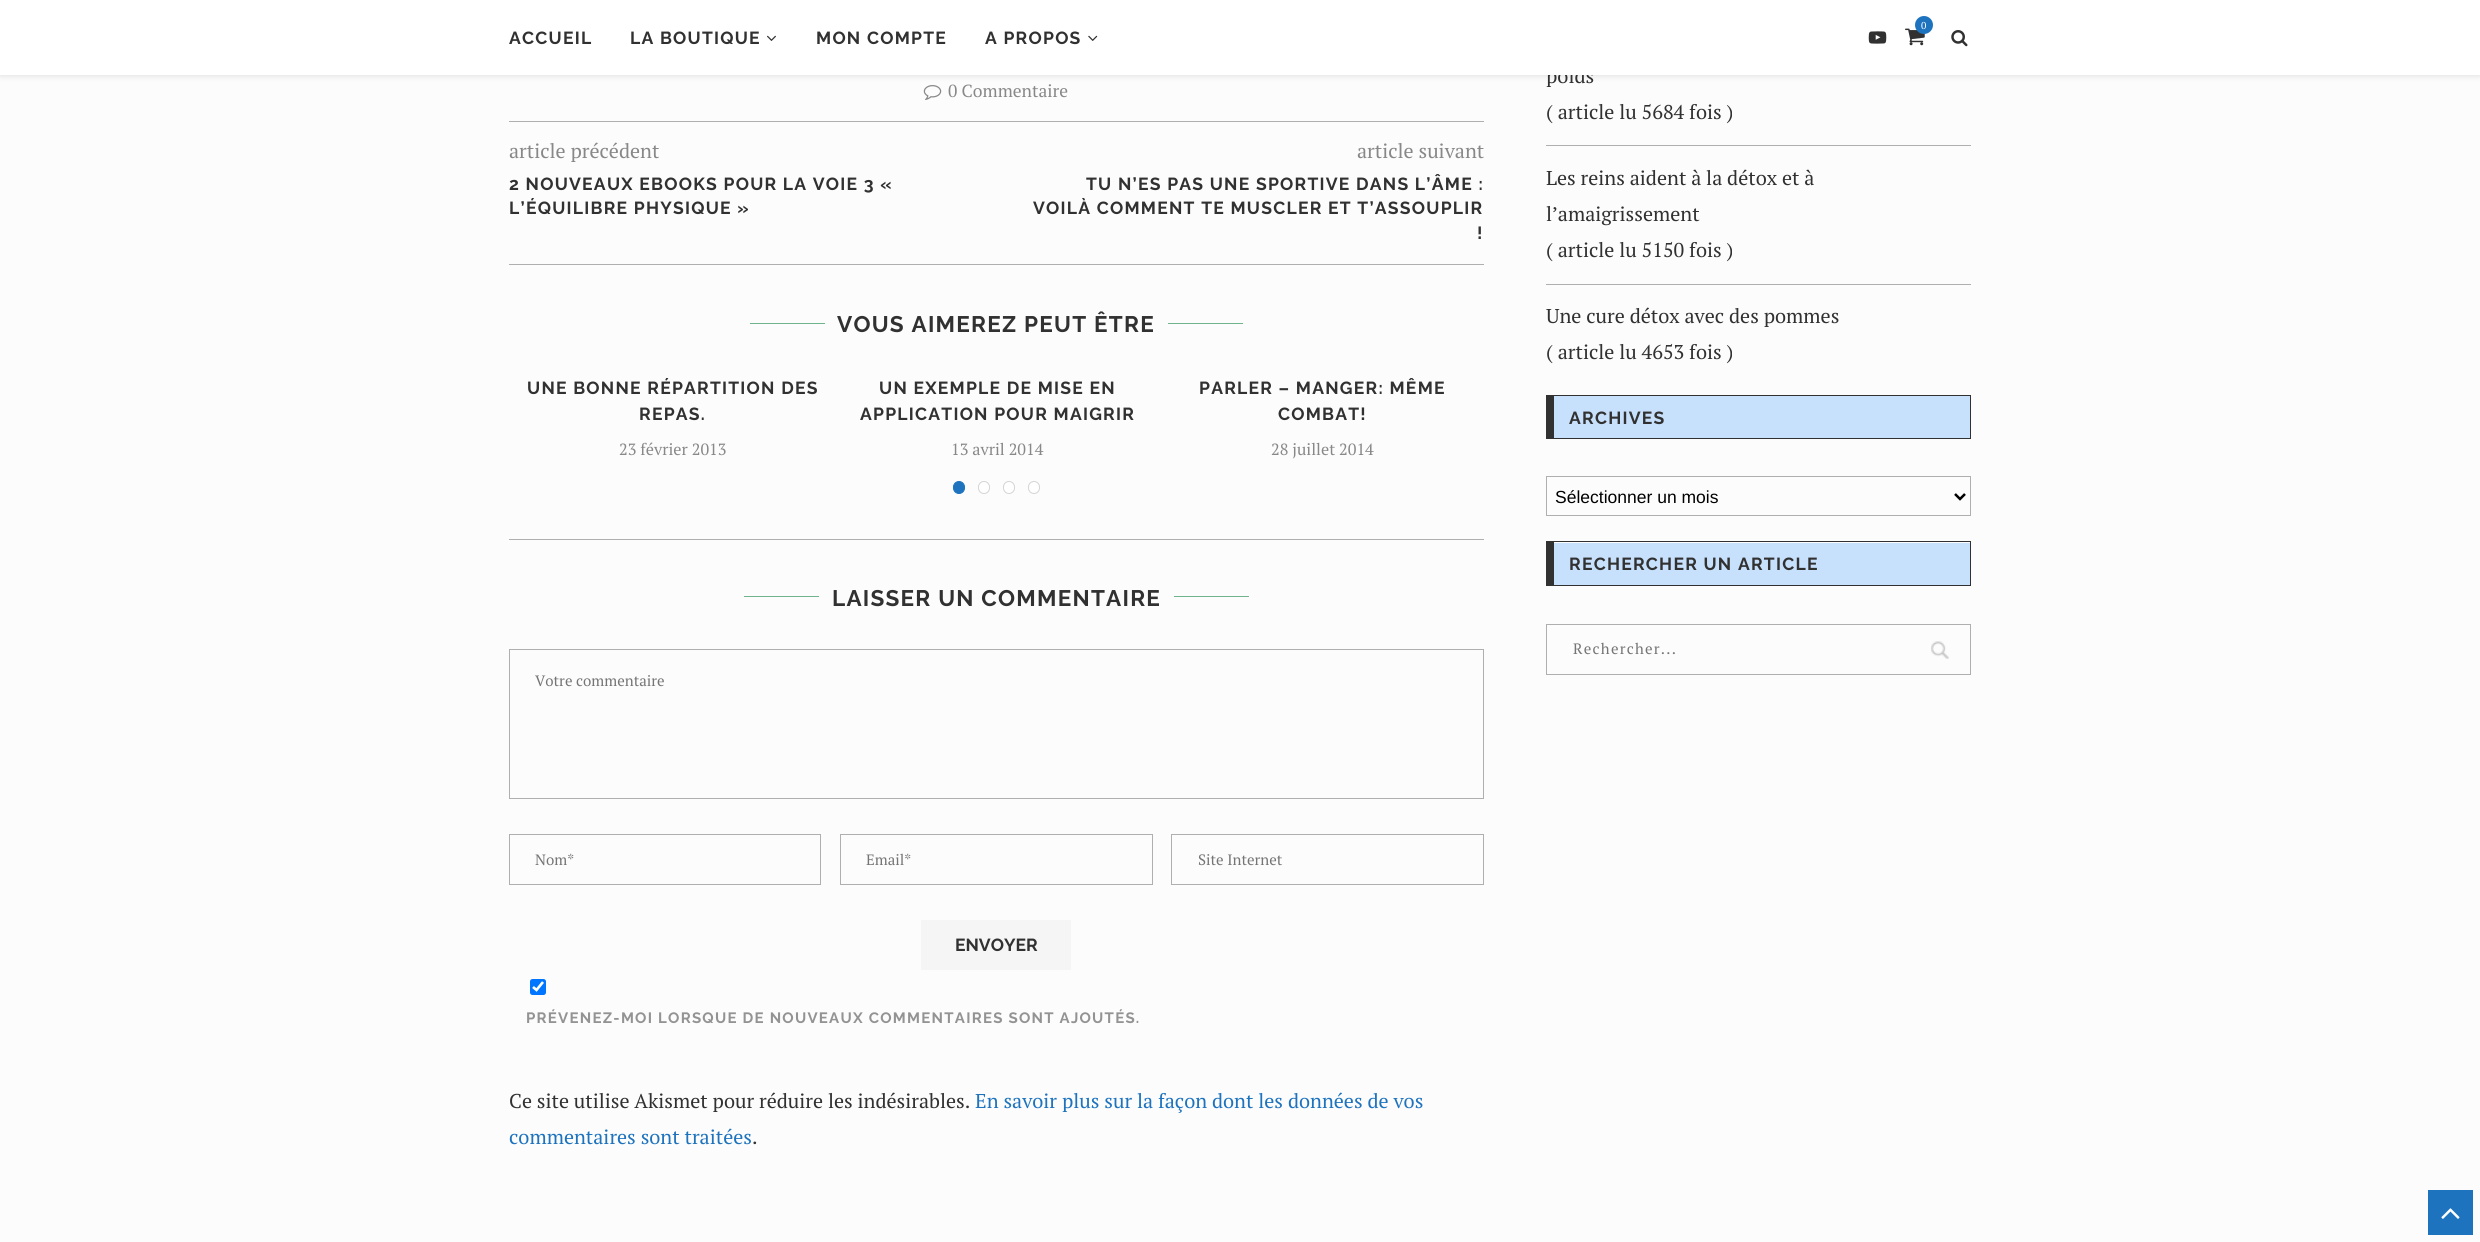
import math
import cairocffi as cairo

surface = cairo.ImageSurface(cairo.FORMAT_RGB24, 2480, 1242)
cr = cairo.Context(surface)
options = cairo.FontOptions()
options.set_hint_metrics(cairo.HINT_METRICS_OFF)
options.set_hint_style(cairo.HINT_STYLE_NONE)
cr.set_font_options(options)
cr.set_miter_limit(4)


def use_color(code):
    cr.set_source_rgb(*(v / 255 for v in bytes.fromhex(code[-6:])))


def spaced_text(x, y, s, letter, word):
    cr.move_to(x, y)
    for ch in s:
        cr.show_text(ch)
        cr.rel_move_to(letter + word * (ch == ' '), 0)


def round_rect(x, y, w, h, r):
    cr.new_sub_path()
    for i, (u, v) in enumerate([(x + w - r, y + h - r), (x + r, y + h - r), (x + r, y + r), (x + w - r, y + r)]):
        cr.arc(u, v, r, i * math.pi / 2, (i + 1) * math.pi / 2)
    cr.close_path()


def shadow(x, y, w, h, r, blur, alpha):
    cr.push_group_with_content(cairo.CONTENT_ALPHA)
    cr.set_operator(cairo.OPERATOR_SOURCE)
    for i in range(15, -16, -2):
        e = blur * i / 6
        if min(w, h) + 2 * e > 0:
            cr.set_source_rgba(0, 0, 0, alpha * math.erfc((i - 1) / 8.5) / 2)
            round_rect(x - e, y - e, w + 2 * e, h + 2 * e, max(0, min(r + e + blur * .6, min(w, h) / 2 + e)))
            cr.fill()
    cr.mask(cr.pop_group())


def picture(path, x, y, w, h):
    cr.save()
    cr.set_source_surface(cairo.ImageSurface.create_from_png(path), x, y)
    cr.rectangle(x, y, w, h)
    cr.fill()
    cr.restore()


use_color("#fcfcfc")
cr.paint()
picture("img6.png", 923, 85, 19, 15)
use_color("#bebebe")
shadow(0, 1, 2480, 75, 0, 3, 0.46)
cr.select_font_face("PT Serif")
cr.set_font_size(20)
use_color("#313131")
cr.move_to(1546, 83)
cr.show_text("poids")
use_color("#ffffff")
cr.rectangle(0, 0, 2480, 75)
cr.fill()
picture("img1.png", 1905, 28, 20, 18)
use_color("#1e73be")
cr.arc(1924, 25, 9, 0, 2 * math.pi)
cr.fill()
cr.set_font_size(10)
use_color("#ffffff")
cr.move_to(1921, 29)
cr.show_text("0")
cr.select_font_face("Raleway", cairo.FONT_SLANT_NORMAL, cairo.FONT_WEIGHT_BOLD)
cr.set_font_size(17.5)
use_color("#313131")
spaced_text(509, 44, "ACCUEIL", 1.25, 0)
spaced_text(630, 44, "LA BOUTIQUE", 1.25, 0)
picture("img2.png", 767, 35, 9, 6)
spaced_text(816, 44, "MON COMPTE", 1.25, 0)
spaced_text(985, 44, "A PROPOS", 1.25, 0)
picture("img3.png", 1088, 35, 10, 6)
picture("img4.png", 1868, 31, 19, 13)
picture("img5.png", 1951, 30, 17, 17)
cr.select_font_face("PT Serif")
use_color("#888888")
cr.move_to(948, 97)
cr.show_text("0 Commentaire")
use_color("#afafaf")
cr.rectangle(509, 121, 975, 1)
cr.fill()
cr.set_font_size(20)
use_color("#888888")
cr.move_to(509, 158)
cr.show_text("article précédent")
cr.select_font_face("Raleway", cairo.FONT_SLANT_NORMAL, cairo.FONT_WEIGHT_BOLD)
cr.set_font_size(17.5)
use_color("#313131")
spaced_text(509, 190, "2 NOUVEAUX EBOOKS POUR LA VOIE 3 «", 1.25, 0)
spaced_text(509, 214, "L’ÉQUILIBRE PHYSIQUE »", 1.25, 0)
cr.select_font_face("PT Serif")
cr.set_font_size(20)
use_color("#888888")
cr.move_to(1357, 158)
cr.show_text("article suivant")
cr.select_font_face("Raleway", cairo.FONT_SLANT_NORMAL, cairo.FONT_WEIGHT_BOLD)
cr.set_font_size(17.5)
use_color("#313131")
spaced_text(1086, 190, "TU N’ES PAS UNE SPORTIVE DANS L’ÂME :", 1.25, 0)
spaced_text(1033, 214, "VOILÀ COMMENT TE MUSCLER ET T’ASSOUPLIR", 1.25, 0)
spaced_text(1477, 239, "!", 1.25, 0)
use_color("#afafaf")
cr.rectangle(509, 264, 975, 1)
cr.fill()
use_color("#6eb48c")
cr.rectangle(750, 323, 75, 1)
cr.fill()
cr.set_font_size(22.5)
use_color("#313131")
spaced_text(837, 332, "VOUS AIMEREZ PEUT ÊTRE", 1.25, 0)
use_color("#6eb48c")
cr.rectangle(1168, 323, 75, 1)
cr.fill()
cr.set_font_size(17.5)
use_color("#313131")
spaced_text(527, 394, "UNE BONNE RÉPARTITION DES", 1.25, 0)
spaced_text(639, 420, "REPAS.", 1.25, 0)
cr.select_font_face("PT Serif")
cr.set_font_size(16.25)
use_color("#888888")
cr.move_to(619, 455)
cr.show_text("23 février 2013")
cr.select_font_face("Raleway", cairo.FONT_SLANT_NORMAL, cairo.FONT_WEIGHT_BOLD)
cr.set_font_size(17.5)
use_color("#313131")
spaced_text(879, 394, "UN EXEMPLE DE MISE EN", 1.25, 0)
spaced_text(860, 420, "APPLICATION POUR MAIGRIR", 1.25, 0)
cr.select_font_face("PT Serif")
cr.set_font_size(16.25)
use_color("#888888")
cr.move_to(951, 455)
cr.show_text("13 avril 2014")
cr.select_font_face("Raleway", cairo.FONT_SLANT_NORMAL, cairo.FONT_WEIGHT_BOLD)
cr.set_font_size(17.5)
use_color("#313131")
spaced_text(1199, 394, "PARLER – MANGER: MÊME", 1.25, 0)
spaced_text(1278, 420, "COMBAT!", 1.25, 0)
cr.select_font_face("PT Serif")
cr.set_font_size(16.25)
use_color("#888888")
cr.move_to(1271, 455)
cr.show_text("28 juillet 2014")
use_color("#1e73be")
round_rect(953.5, 481.5, 11, 12, 5.5)
cr.fill_preserve()
cr.set_line_width(1)
cr.stroke()
use_color("#ffffff")
round_rect(978.5, 481.5, 11, 12, 5.5)
cr.fill_preserve()
use_color("#d4d4d4")
cr.stroke()
use_color("#ffffff")
round_rect(1003.5, 481.5, 11, 12, 5.5)
cr.fill_preserve()
use_color("#d4d4d4")
cr.stroke()
use_color("#ffffff")
round_rect(1028.5, 481.5, 11, 12, 5.5)
cr.fill_preserve()
use_color("#d4d4d4")
cr.stroke()
use_color("#afafaf")
cr.rectangle(509, 539, 975, 1)
cr.fill()
use_color("#6eb48c")
cr.rectangle(744, 596, 75, 1)
cr.fill()
cr.select_font_face("Raleway", cairo.FONT_SLANT_NORMAL, cairo.FONT_WEIGHT_BOLD)
cr.set_font_size(22.5)
use_color("#313131")
spaced_text(832, 606, "LAISSER UN COMMENTAIRE", 1.25, 0)
use_color("#6eb48c")
cr.rectangle(1174, 596, 75, 1)
cr.fill()
cr.rectangle(509.5, 649.5, 974, 149)
use_color("#afafaf")
cr.stroke()
cr.select_font_face("PT Serif")
cr.set_font_size(15)
use_color("#757575")
cr.move_to(535, 686)
cr.show_text("Votre commentaire")
cr.rectangle(509.5, 834.5, 311, 50)
use_color("#afafaf")
cr.stroke()
use_color("#757575")
cr.move_to(535, 865)
cr.show_text("Nom*")
cr.rectangle(840.5, 834.5, 312, 50)
use_color("#afafaf")
cr.stroke()
use_color("#757575")
cr.move_to(866, 865)
cr.show_text("Email*")
cr.rectangle(1171.5, 834.5, 312, 50)
use_color("#afafaf")
cr.stroke()
use_color("#757575")
cr.move_to(1198, 865)
cr.show_text("Site Internet")
use_color("#f5f5f5")
cr.rectangle(921, 920, 150, 50)
cr.fill()
cr.select_font_face("Raleway", cairo.FONT_SLANT_NORMAL, cairo.FONT_WEIGHT_BOLD)
cr.set_font_size(17.5)
use_color("#313131")
cr.move_to(955, 951)
cr.show_text("ENVOYER")
use_color("#0075ff")
round_rect(530, 979, 16, 16, 2.5)
cr.fill()
cr.new_path()
cr.move_to(533, 987)
cr.line_to(536.5, 990)
cr.line_to(543, 982)
use_color("#ffffff")
cr.set_line_width(2.6)
cr.stroke()
cr.set_font_size(15)
use_color("#939393")
spaced_text(526, 1023, "PRÉVENEZ-MOI LORSQUE DE NOUVEAUX COMMENTAIRES SONT AJOUTÉS.", 1.25, 0)
cr.select_font_face("PT Serif")
cr.set_font_size(20)
use_color("#313131")
cr.move_to(509, 1108)
cr.show_text("Ce site utilise Akismet pour réduire les indésirables.")
use_color("#1e73be")
cr.move_to(975, 1108)
cr.show_text("En savoir plus sur la façon dont les données de vos")
cr.move_to(509, 1144)
cr.show_text("commentaires sont traitées")
use_color("#313131")
cr.move_to(752, 1144)
cr.show_text(".")
use_color("#afafaf")
cr.rectangle(1546, 145, 425, 1)
cr.fill()
use_color("#313131")
cr.move_to(1546, 119)
cr.show_text("( article lu 5684 fois )")
use_color("#afafaf")
cr.rectangle(1546, 284, 425, 1)
cr.fill()
use_color("#313131")
cr.move_to(1546, 185)
cr.show_text("Les reins aident à la détox et à")
cr.move_to(1546, 221)
cr.show_text("l’amaigrissement")
cr.move_to(1546, 257)
cr.show_text("( article lu 5150 fois )")
cr.move_to(1546, 323)
cr.show_text("Une cure détox avec des pommes")
cr.move_to(1546, 359)
cr.show_text("( article lu 4653 fois )")
use_color("#c7e0fc")
cr.rectangle(1554, 396, 416, 42)
cr.fill()
use_color("#313131")
cr.rectangle(1546, 395, 425, 1)
cr.fill()
cr.rectangle(1970, 395, 1, 44)
cr.fill()
cr.rectangle(1546, 438, 425, 1)
cr.fill()
cr.rectangle(1546, 395, 8, 44)
cr.fill()
cr.select_font_face("Raleway", cairo.FONT_SLANT_NORMAL, cairo.FONT_WEIGHT_BOLD)
cr.set_font_size(17.5)
spaced_text(1569, 424, "ARCHIVES", 1.25, 0)
cr.rectangle(1546.5, 476.5, 424, 39)
use_color("#afafaf")
cr.set_line_width(1)
cr.stroke()
cr.new_path()
cr.move_to(1955, 494)
cr.line_to(1960, 499)
cr.line_to(1965, 494)
use_color("#000000")
cr.set_line_width(2.5)
cr.stroke()
cr.select_font_face("Liberation Sans")
cr.move_to(1555, 503)
cr.show_text("Sélectionner un mois")
use_color("#c7e0fc")
cr.rectangle(1554, 543, 416, 42)
cr.fill()
use_color("#313131")
cr.rectangle(1546, 541, 425, 1)
cr.fill()
cr.rectangle(1970, 541, 1, 45)
cr.fill()
cr.rectangle(1546, 585, 425, 1)
cr.fill()
cr.rectangle(1546, 541, 8, 45)
cr.fill()
cr.select_font_face("Raleway", cairo.FONT_SLANT_NORMAL, cairo.FONT_WEIGHT_BOLD)
spaced_text(1569, 570, "RECHERCHER UN ARTICLE", 1.25, 0)
picture("img7.png", 1931, 641, 18, 18)
cr.rectangle(1546.5, 624.5, 424, 50)
use_color("#afafaf")
cr.set_line_width(1)
cr.stroke()
cr.select_font_face("PT Serif")
cr.set_font_size(15)
use_color("#757575")
spaced_text(1573, 654, "Rechercher...", 1.25, 0)
use_color("#1e73be")
cr.rectangle(2428, 1190, 45, 45)
cr.fill()
picture("img8.png", 2441, 1208, 19, 11)
surface.write_to_png("result.png")
